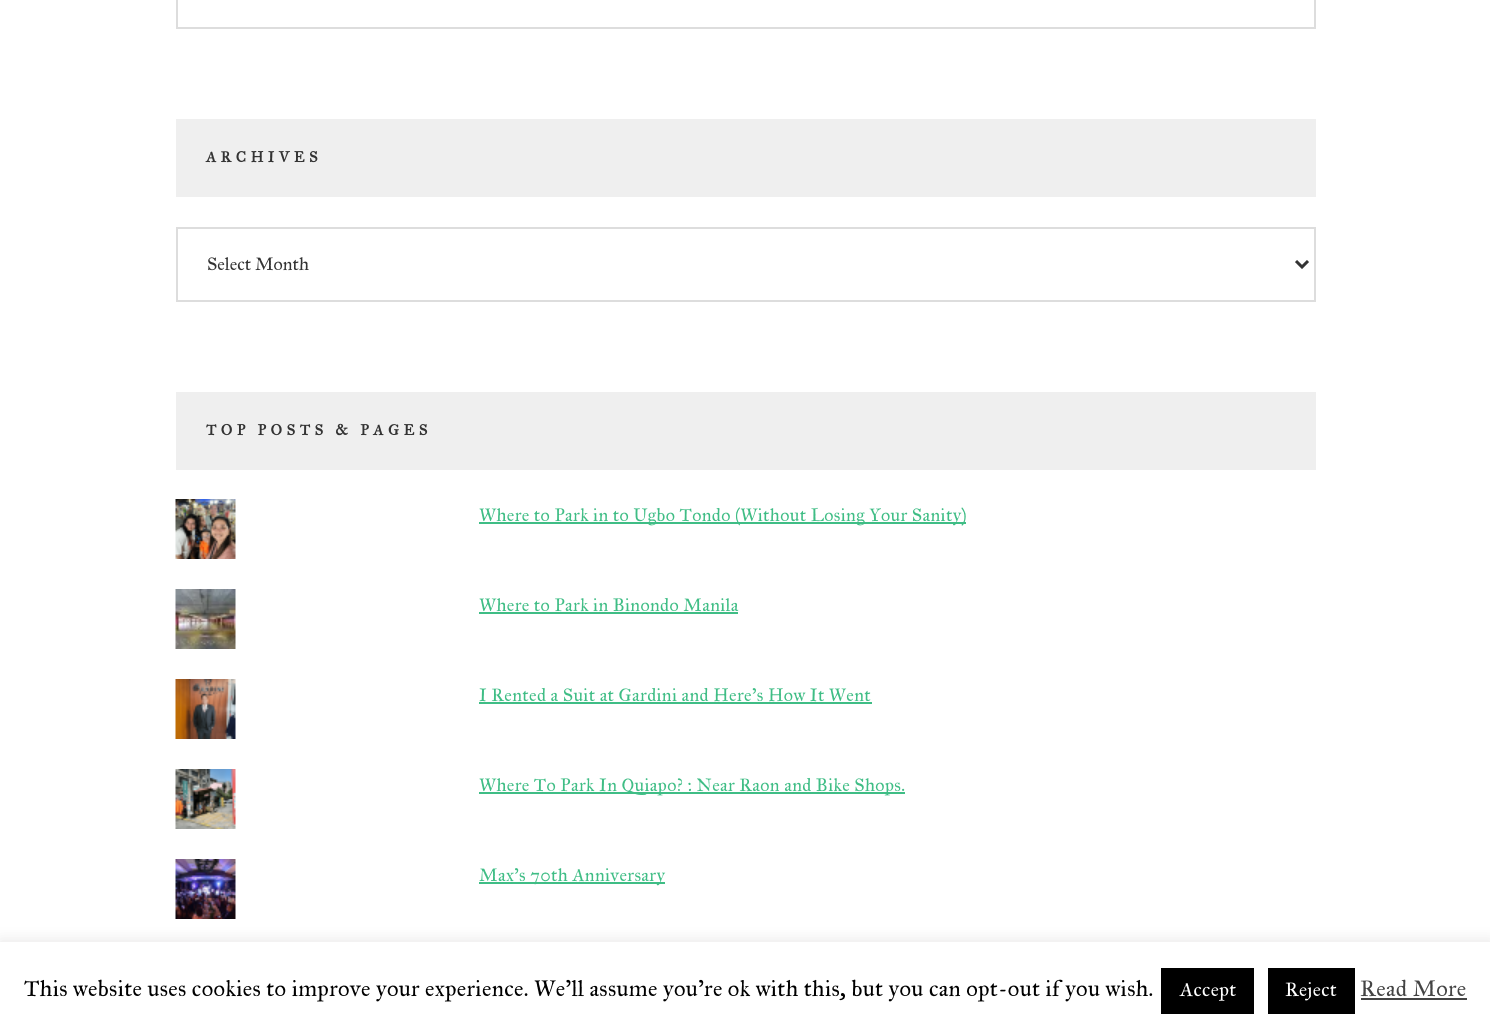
import math
import cairocffi as cairo

surface = cairo.ImageSurface(cairo.FORMAT_RGB24, 1490, 1031)
cr = cairo.Context(surface)
options = cairo.FontOptions()
options.set_hint_metrics(cairo.HINT_METRICS_OFF)
options.set_hint_style(cairo.HINT_STYLE_NONE)
cr.set_font_options(options)
cr.set_miter_limit(4)


def use_color(code):
    cr.set_source_rgb(*(v / 255 for v in bytes.fromhex(code[-6:])))


def spaced_text(x, y, s, letter, word):
    cr.move_to(x, y)
    for ch in s:
        cr.show_text(ch)
        cr.rel_move_to(letter + word * (ch == ' '), 0)


def round_rect(x, y, w, h, r):
    cr.new_sub_path()
    for i, (u, v) in enumerate([(x + w - r, y + h - r), (x + r, y + h - r), (x + r, y + r), (x + w - r, y + r)]):
        cr.arc(u, v, r, i * math.pi / 2, (i + 1) * math.pi / 2)
    cr.close_path()


def shadow(x, y, w, h, r, blur, alpha):
    cr.push_group_with_content(cairo.CONTENT_ALPHA)
    cr.set_operator(cairo.OPERATOR_SOURCE)
    for i in range(15, -16, -2):
        e = blur * i / 6
        if min(w, h) + 2 * e > 0:
            cr.set_source_rgba(0, 0, 0, alpha * math.erfc((i - 1) / 8.5) / 2)
            round_rect(x - e, y - e, w + 2 * e, h + 2 * e, max(0, min(r + e + blur * .6, min(w, h) / 2 + e)))
            cr.fill()
    cr.mask(cr.pop_group())


def picture(path, x, y, w, h):
    cr.save()
    cr.set_source_surface(cairo.ImageSurface.create_from_png(path), x, y)
    cr.rectangle(x, y, w, h)
    cr.fill()
    cr.restore()


use_color("#ffffff")
cr.paint()
cr.rectangle(177, -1, 1138, 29)
use_color("#dddddd")
cr.stroke()
use_color("#efefef")
cr.rectangle(176, 119, 1140, 78)
cr.fill()
cr.select_font_face("IM FELL Great Primer", cairo.FONT_SLANT_NORMAL, cairo.FONT_WEIGHT_BOLD)
cr.set_font_size(15)
use_color("#333333")
spaced_text(206, 162, "ARCHIVES", 4.5, 0)
cr.rectangle(177, 228, 1138, 73)
use_color("#dddddd")
cr.stroke()
cr.new_path()
cr.move_to(1296, 261)
cr.line_to(1302, 267)
cr.line_to(1308, 261)
use_color("#333333")
cr.set_line_width(3)
cr.stroke()
cr.select_font_face("IM FELL Great Primer")
cr.set_font_size(18)
cr.move_to(207, 270)
cr.show_text("Select Month")
use_color("#efefef")
cr.rectangle(176, 392, 1140, 78)
cr.fill()
cr.select_font_face("IM FELL Great Primer", cairo.FONT_SLANT_NORMAL, cairo.FONT_WEIGHT_BOLD)
cr.set_font_size(15)
use_color("#333333")
spaced_text(206, 435, "TOP POSTS & PAGES", 4.5, 0)
picture("img1.png", 175, 499, 61, 60)
use_color("#3fbd85")
cr.rectangle(479, 522, 487, 2)
cr.fill()
cr.select_font_face("IM FELL Great Primer")
cr.set_font_size(18)
spaced_text(479, 521, "Where to Park in to Ugbo Tondo (Without Losing Your Sanity)", 0.36, 0)
picture("img2.png", 175, 589, 61, 60)
spaced_text(479, 611, "Where to Park in Binondo Manila", 0.36, 0)
cr.rectangle(479, 612, 259, 2)
cr.fill()
picture("img3.png", 175, 679, 61, 60)
spaced_text(479, 701, "I Rented a Suit at Gardini and Here’s How It Went", 0.36, 0)
cr.rectangle(479, 702, 393, 2)
cr.fill()
picture("img4.png", 175, 769, 61, 60)
cr.rectangle(479, 792, 426, 2)
cr.fill()
spaced_text(479, 791, "Where To Park In Quiapo? : Near Raon and Bike Shops.", 0.36, 0)
picture("img5.png", 175, 859, 61, 60)
cr.rectangle(479, 882, 186, 2)
cr.fill()
spaced_text(479, 881, "Max's 70th Anniversary", 0.36, 0)
use_color("#acabab")
shadow(0, 941, 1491, 90, 0, 7.5, 0.3)
use_color("#ffffff")
cr.rectangle(0, 942, 1490, 89)
cr.fill()
cr.set_font_size(22.5)
use_color("#000000")
spaced_text(24, 996, "This website uses cookies to improve your experience. We'll assume you're ok with this, but you can opt-out if you wish.", 0.36, 0)
cr.rectangle(1161, 968, 93, 46)
cr.fill()
cr.set_font_size(19.5)
use_color("#ffffff")
spaced_text(1180, 996, "Accept", 0.36, 0)
use_color("#000000")
cr.rectangle(1268, 968, 87, 46)
cr.fill()
use_color("#ffffff")
spaced_text(1285, 996, "Reject", 0.36, 0)
cr.set_font_size(22.5)
use_color("#444444")
spaced_text(1360, 996, "Read More", 0.36, 0)
cr.rectangle(1361, 998, 106, 2)
cr.fill()
surface.write_to_png("result.png")
